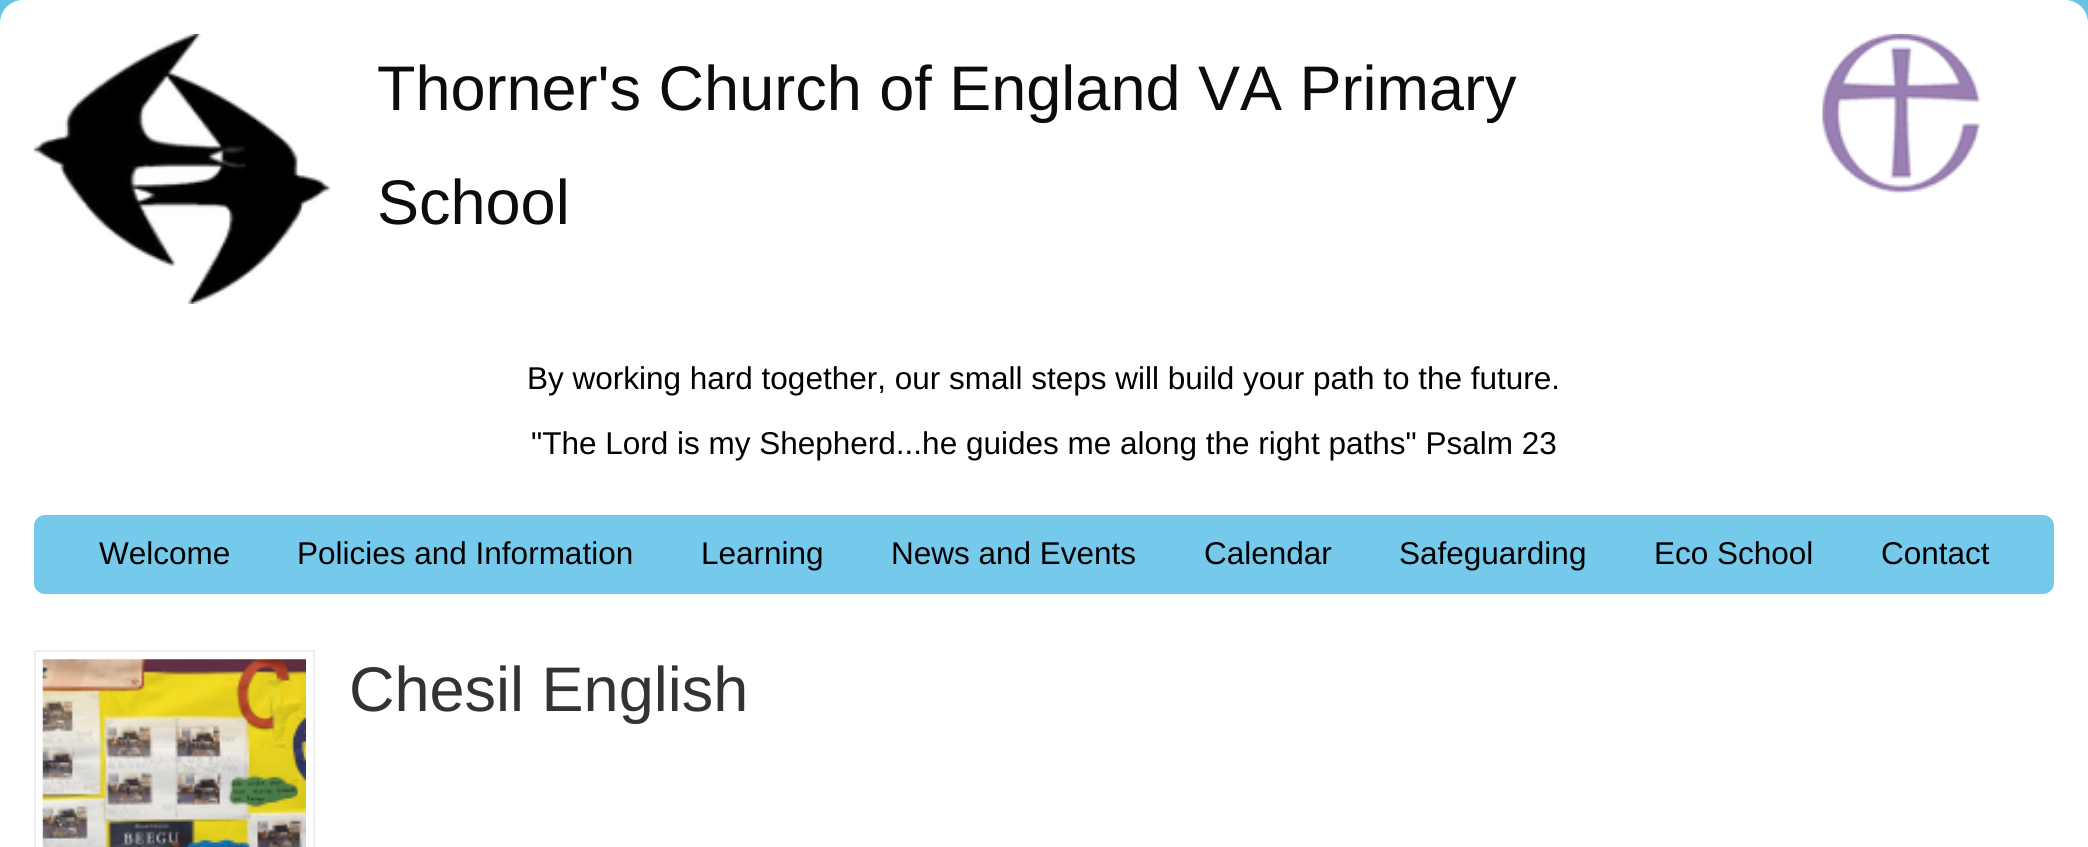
import math
import cairocffi as cairo

surface = cairo.ImageSurface(cairo.FORMAT_RGB24, 2088, 847)
cr = cairo.Context(surface)
options = cairo.FontOptions()
options.set_hint_metrics(cairo.HINT_METRICS_OFF)
options.set_hint_style(cairo.HINT_STYLE_NONE)
cr.set_font_options(options)
cr.set_miter_limit(4)


def use_color(code):
    cr.set_source_rgb(*(v / 255 for v in bytes.fromhex(code[-6:])))


def round_rect(x, y, w, h, r):
    cr.new_sub_path()
    for i, (u, v) in enumerate([(x + w - r, y + h - r), (x + r, y + h - r), (x + r, y + r), (x + w - r, y + r)]):
        cr.arc(u, v, r, i * math.pi / 2, (i + 1) * math.pi / 2)
    cr.close_path()


def picture(path, x, y, w, h):
    cr.save()
    cr.set_source_surface(cairo.ImageSurface.create_from_png(path), x, y)
    cr.rectangle(x, y, w, h)
    cr.fill()
    cr.restore()


use_color("#64c2e7")
cr.paint()
use_color("#ffffff")
round_rect(0, 0, 2088, 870, 23)
cr.fill()
picture("img1.png", 33, 33, 298, 271)
cr.select_font_face("Liberation Sans")
cr.set_font_size(63)
use_color("#0c0c0c")
cr.move_to(377, 110)
cr.show_text("Thorner's Church of England VA Primary")
cr.move_to(377, 224)
cr.show_text("School")
cr.set_font_size(31.5)
use_color("#000000")
cr.move_to(527, 389)
cr.show_text("By working hard together, our small steps will build your path to the future.")
cr.move_to(531, 454)
cr.show_text("\"The Lord is my Shepherd...he guides me along the right paths\" Psalm 23")
picture("img2.png", 1822, 33, 158, 161)
use_color("#75c9ea")
round_rect(34, 515, 2020, 79, 11)
cr.fill()
use_color("#000000")
cr.move_to(99, 564)
cr.show_text("Welcome")
cr.move_to(297, 564)
cr.show_text("Policies and Information")
cr.move_to(701, 564)
cr.show_text("Learning")
cr.move_to(891, 564)
cr.show_text("News and Events")
cr.move_to(1204, 564)
cr.show_text("Calendar")
cr.move_to(1399, 564)
cr.show_text("Safeguarding")
cr.move_to(1654, 564)
cr.show_text("Eco School")
cr.move_to(1881, 564)
cr.show_text("Contact")
cr.rectangle(35, 651, 279, 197)
use_color("#eeeeee")
cr.stroke()
picture("img3.png", 42, 659, 264, 188)
cr.set_font_size(63)
use_color("#333333")
cr.move_to(349, 711)
cr.show_text("Chesil English")
surface.write_to_png("result.png")
